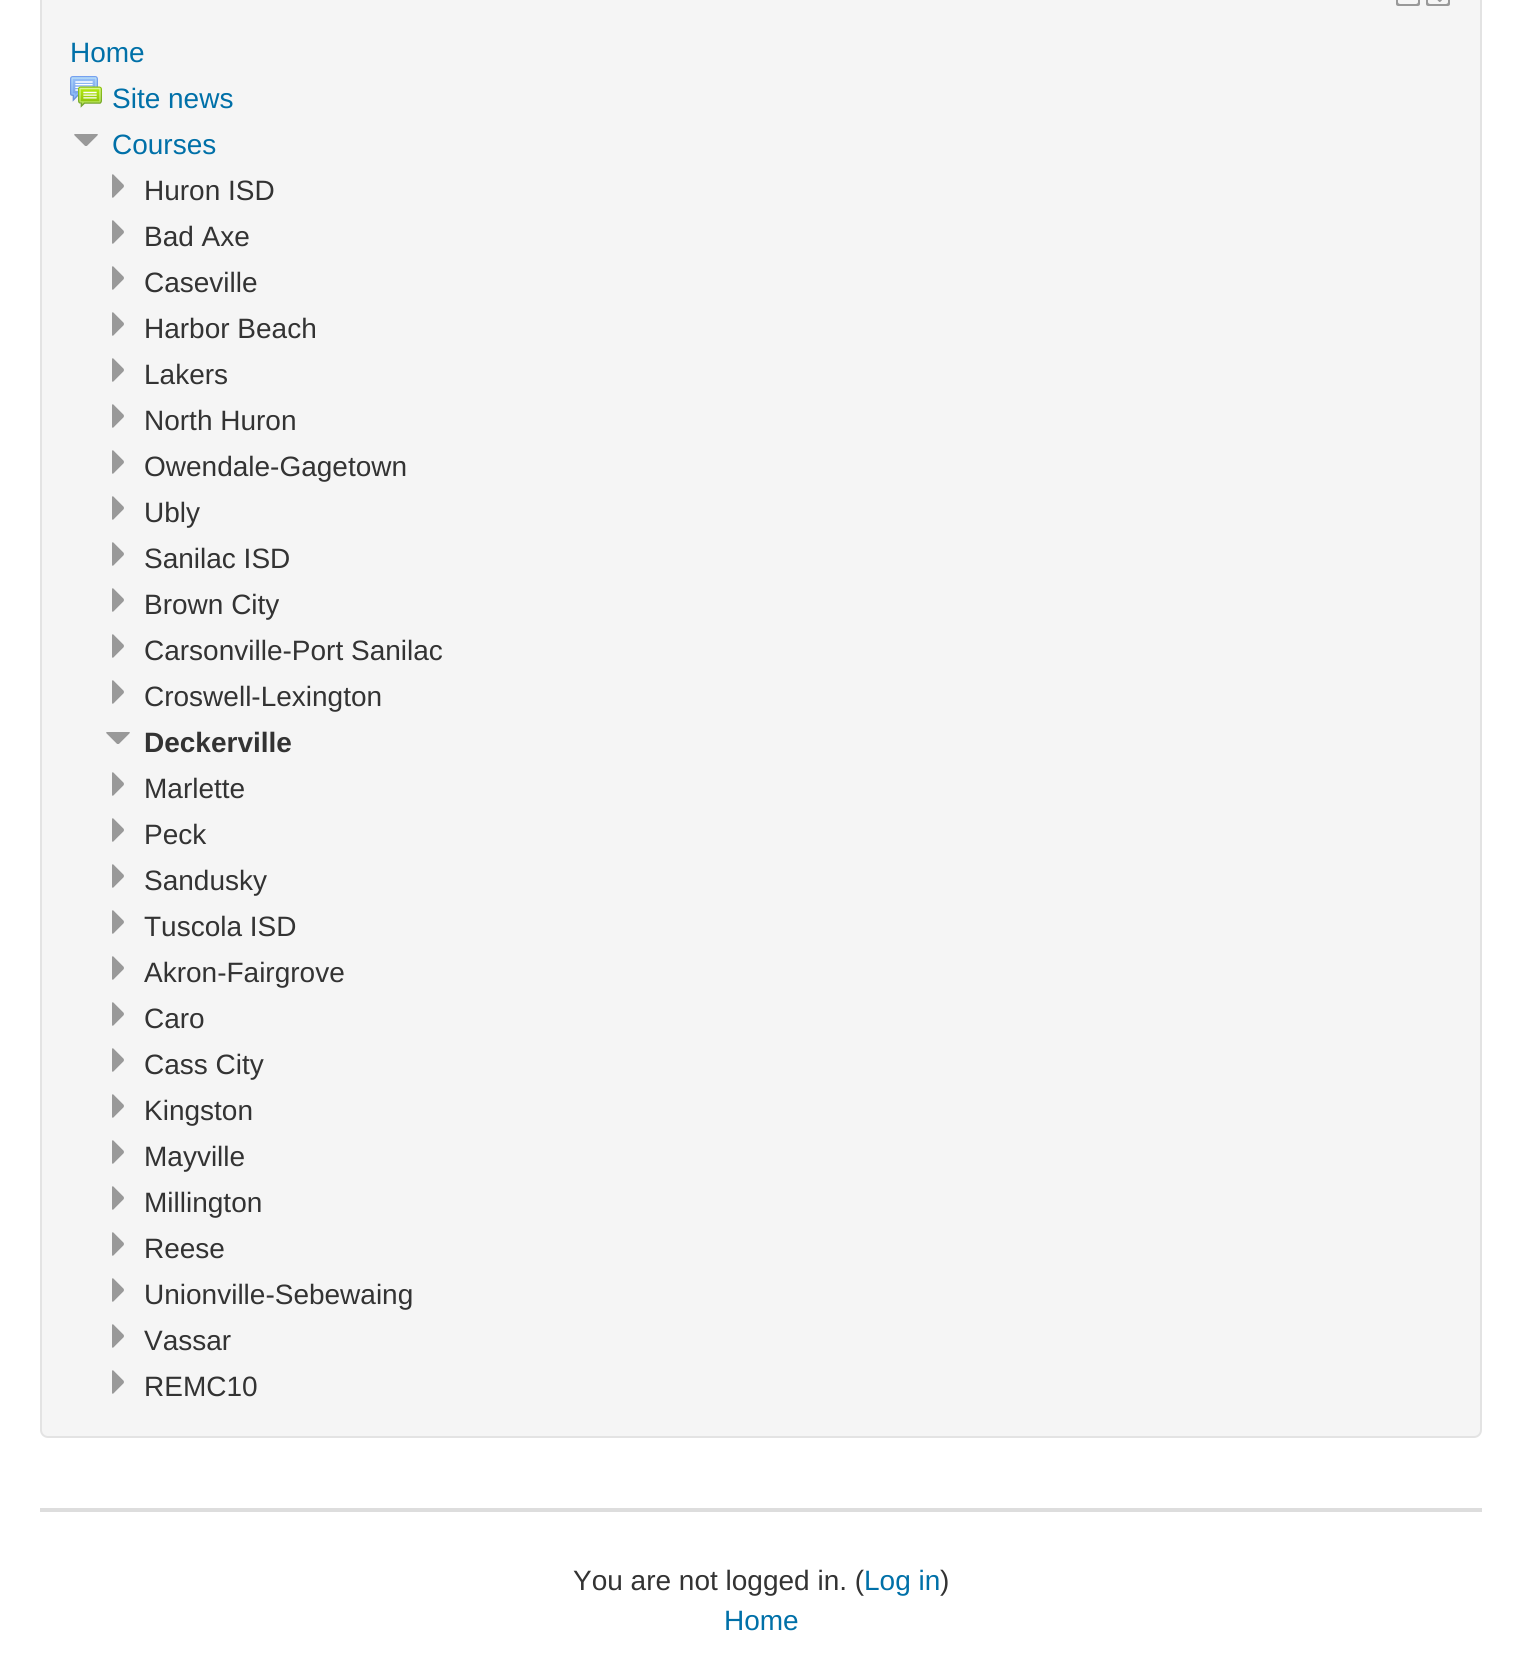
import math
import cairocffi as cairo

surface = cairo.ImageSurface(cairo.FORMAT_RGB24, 1521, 1668)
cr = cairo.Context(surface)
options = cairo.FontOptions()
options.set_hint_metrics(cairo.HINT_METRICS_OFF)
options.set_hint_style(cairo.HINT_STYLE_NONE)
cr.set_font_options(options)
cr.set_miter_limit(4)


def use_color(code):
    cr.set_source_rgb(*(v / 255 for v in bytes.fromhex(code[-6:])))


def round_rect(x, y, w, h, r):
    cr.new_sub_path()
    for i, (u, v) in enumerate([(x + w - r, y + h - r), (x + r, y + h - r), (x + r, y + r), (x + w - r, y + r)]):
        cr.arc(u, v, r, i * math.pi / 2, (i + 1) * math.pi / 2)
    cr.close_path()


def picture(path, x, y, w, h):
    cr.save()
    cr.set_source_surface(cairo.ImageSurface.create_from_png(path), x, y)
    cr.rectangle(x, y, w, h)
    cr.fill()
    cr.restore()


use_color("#ffffff")
cr.paint()
use_color("#f5f5f5")
round_rect(41, -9, 1440, 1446, 7)
cr.fill_preserve()
use_color("#e3e3e3")
cr.stroke()
picture("img1.png", 1396, 0, 24, 6)
picture("img2.png", 1426, 0, 24, 6)
cr.select_font_face("Liberation Sans")
cr.set_font_size(28)
use_color("#0070a8")
cr.move_to(70, 62)
cr.show_text("Home")
picture("img3.png", 70, 76, 32, 32)
cr.move_to(112, 108)
cr.show_text("Site news")
picture("img4.png", 74, 134, 24, 12)
cr.move_to(112, 154)
cr.show_text("Courses")
picture("img5.png", 112, 174, 12, 24)
use_color("#333333")
cr.move_to(144, 200)
cr.show_text("Huron ISD")
picture("img5.png", 112, 220, 12, 24)
cr.move_to(144, 246)
cr.show_text("Bad Axe")
picture("img5.png", 112, 266, 12, 24)
cr.move_to(144, 292)
cr.show_text("Caseville")
picture("img6.png", 112, 312, 12, 24)
cr.move_to(144, 338)
cr.show_text("Harbor Beach")
picture("img5.png", 112, 358, 12, 24)
cr.move_to(144, 384)
cr.show_text("Lakers")
picture("img5.png", 112, 404, 12, 24)
cr.move_to(144, 430)
cr.show_text("North Huron")
picture("img5.png", 112, 450, 12, 24)
cr.move_to(144, 476)
cr.show_text("Owendale-Gagetown")
picture("img5.png", 112, 496, 12, 24)
cr.move_to(144, 522)
cr.show_text("Ubly")
picture("img5.png", 112, 542, 12, 24)
cr.move_to(144, 568)
cr.show_text("Sanilac ISD")
picture("img5.png", 112, 588, 12, 24)
cr.move_to(144, 614)
cr.show_text("Brown City")
picture("img5.png", 112, 634, 12, 24)
cr.move_to(144, 660)
cr.show_text("Carsonville-Port Sanilac")
picture("img5.png", 112, 680, 12, 24)
cr.move_to(144, 706)
cr.show_text("Croswell-Lexington")
picture("img4.png", 106, 732, 24, 12)
cr.select_font_face("Liberation Sans", cairo.FONT_SLANT_NORMAL, cairo.FONT_WEIGHT_BOLD)
cr.move_to(144, 752)
cr.show_text("Deckerville")
picture("img5.png", 112, 772, 12, 24)
cr.select_font_face("Liberation Sans")
cr.move_to(144, 798)
cr.show_text("Marlette")
picture("img7.png", 112, 818, 12, 24)
cr.move_to(144, 844)
cr.show_text("Peck")
picture("img5.png", 112, 864, 12, 24)
cr.move_to(144, 890)
cr.show_text("Sandusky")
picture("img5.png", 112, 910, 12, 24)
cr.move_to(144, 936)
cr.show_text("Tuscola ISD")
picture("img5.png", 112, 956, 12, 24)
cr.move_to(144, 982)
cr.show_text("Akron-Fairgrove")
picture("img5.png", 112, 1002, 12, 24)
cr.move_to(144, 1028)
cr.show_text("Caro")
picture("img5.png", 112, 1048, 12, 24)
cr.move_to(144, 1074)
cr.show_text("Cass City")
picture("img5.png", 112, 1094, 12, 24)
cr.move_to(144, 1120)
cr.show_text("Kingston")
picture("img5.png", 112, 1140, 12, 24)
cr.move_to(144, 1166)
cr.show_text("Mayville")
picture("img5.png", 112, 1186, 12, 24)
cr.move_to(144, 1212)
cr.show_text("Millington")
picture("img5.png", 112, 1232, 12, 24)
cr.move_to(144, 1258)
cr.show_text("Reese")
picture("img5.png", 112, 1278, 12, 24)
cr.move_to(144, 1304)
cr.show_text("Unionville-Sebewaing")
picture("img8.png", 112, 1324, 12, 24)
cr.move_to(144, 1350)
cr.show_text("Vassar")
picture("img5.png", 112, 1370, 12, 24)
cr.move_to(144, 1396)
cr.show_text("REMC10")
use_color("#dddddd")
cr.rectangle(40, 1508, 1442, 4)
cr.fill()
use_color("#333333")
cr.move_to(573, 1590)
cr.show_text("You are not logged in. (")
use_color("#0070a8")
cr.move_to(864, 1590)
cr.show_text("Log in")
use_color("#333333")
cr.move_to(940, 1590)
cr.show_text(")")
use_color("#0070a8")
cr.move_to(724, 1630)
cr.show_text("Home")
surface.write_to_png("result.png")
